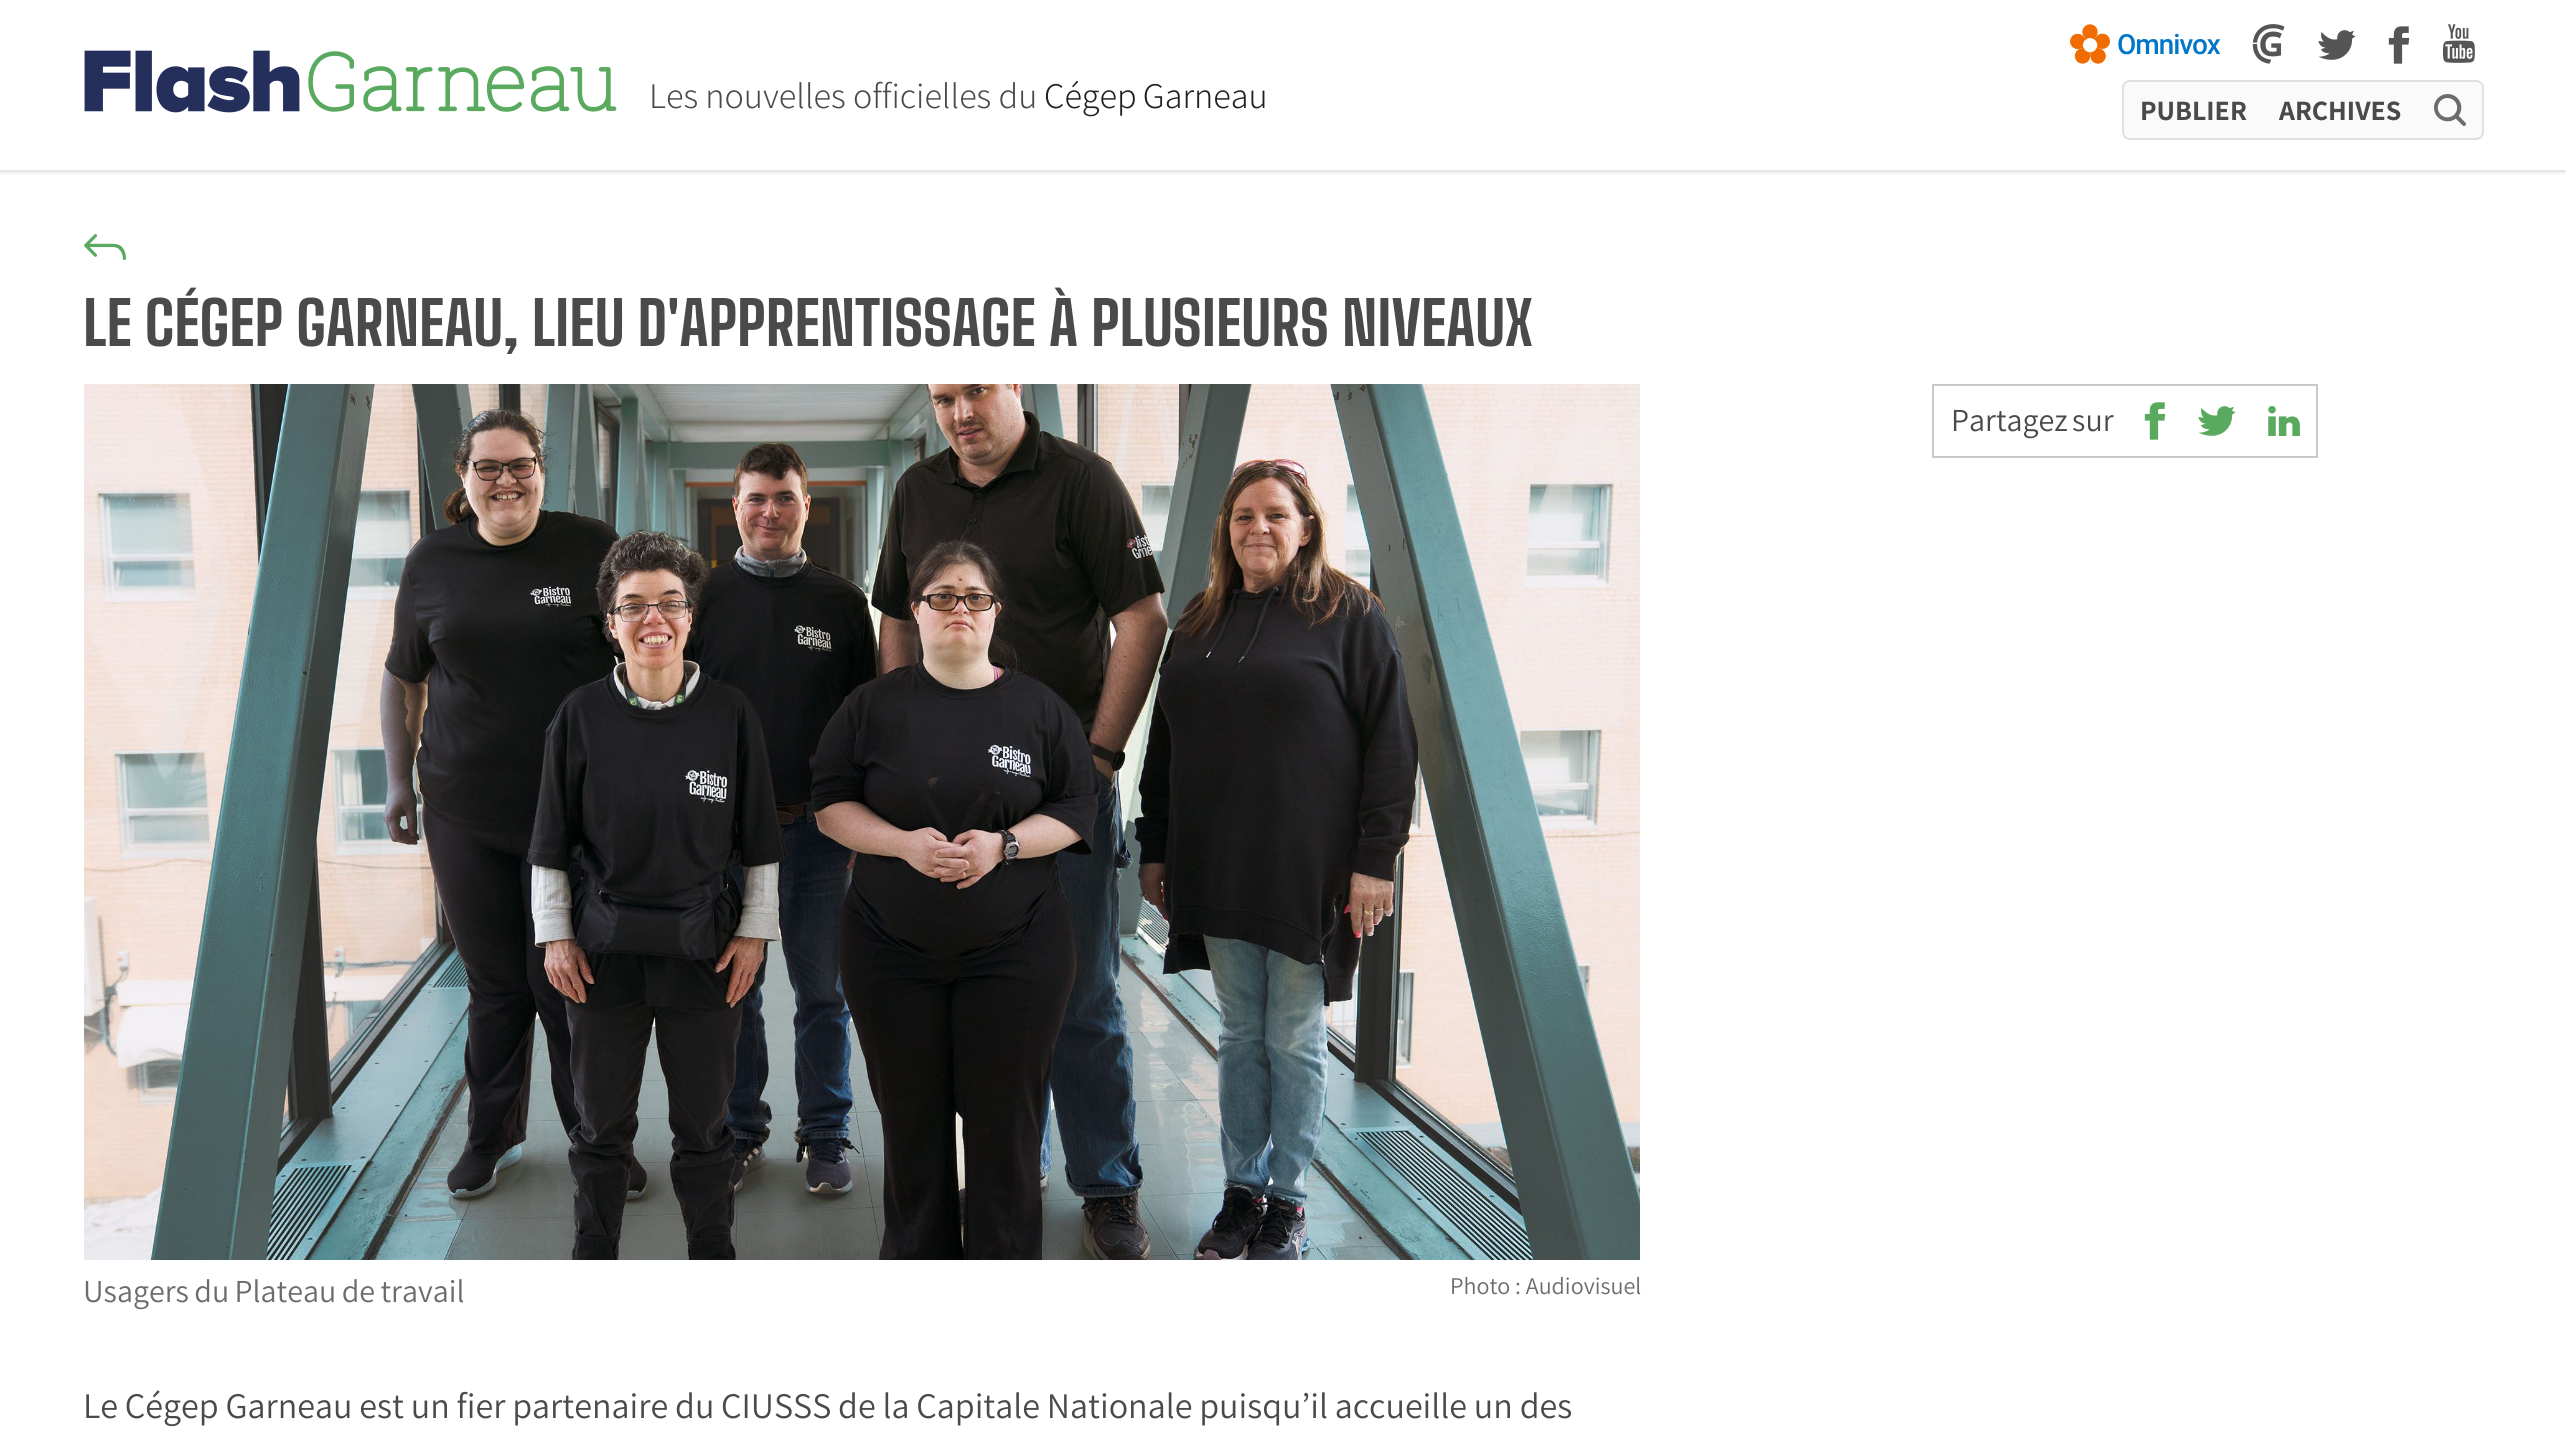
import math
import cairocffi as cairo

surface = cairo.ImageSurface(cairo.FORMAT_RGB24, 2566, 1434)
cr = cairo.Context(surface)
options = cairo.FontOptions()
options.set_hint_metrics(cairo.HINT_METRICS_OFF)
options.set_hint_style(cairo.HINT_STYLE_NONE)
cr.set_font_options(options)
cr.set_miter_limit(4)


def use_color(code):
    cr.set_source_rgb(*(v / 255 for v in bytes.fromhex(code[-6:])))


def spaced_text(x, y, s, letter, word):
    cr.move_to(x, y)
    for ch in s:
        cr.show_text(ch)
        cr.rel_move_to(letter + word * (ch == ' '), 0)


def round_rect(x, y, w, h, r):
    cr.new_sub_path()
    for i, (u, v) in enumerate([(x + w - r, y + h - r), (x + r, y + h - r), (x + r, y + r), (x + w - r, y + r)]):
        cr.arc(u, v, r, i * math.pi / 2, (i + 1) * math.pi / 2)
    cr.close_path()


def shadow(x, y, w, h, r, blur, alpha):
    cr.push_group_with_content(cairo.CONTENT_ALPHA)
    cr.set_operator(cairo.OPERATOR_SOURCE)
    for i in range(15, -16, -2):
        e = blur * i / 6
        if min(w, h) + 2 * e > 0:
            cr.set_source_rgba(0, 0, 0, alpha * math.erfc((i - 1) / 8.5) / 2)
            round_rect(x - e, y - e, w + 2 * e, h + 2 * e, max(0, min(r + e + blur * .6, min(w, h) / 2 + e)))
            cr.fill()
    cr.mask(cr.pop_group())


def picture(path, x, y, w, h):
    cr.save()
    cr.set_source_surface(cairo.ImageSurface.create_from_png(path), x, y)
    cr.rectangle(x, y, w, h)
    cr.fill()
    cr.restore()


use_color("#ffffff")
cr.paint()
cr.save()
cr.rectangle(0, 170, 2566, 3)
cr.clip()
use_color("#000000")
shadow(0, 2, 2566, 170, 0, 2, 0.06)
cr.restore()
cr.save()
cr.rectangle(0, 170, 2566, 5)
cr.clip()
use_color("#000000")
shadow(0, 2, 2566, 170, 0, 3, 0.1)
cr.restore()
picture("img1.png", 84, 50, 533, 63)
cr.select_font_face("Assistant Light")
cr.set_font_size(36)
use_color("#4a4a4a")
cr.move_to(649, 108)
cr.show_text("Les nouvelles officielles du")
use_color("#231f20")
spaced_text(1044, 108, "Cégep Garneau", 0, -1)
picture("img2.png", 2070, 24, 150, 40)
picture("img3.png", 2252, 24, 33, 40)
picture("img4.png", 2318, 30, 38, 30)
picture("img5.png", 2388, 26, 22, 38)
picture("img6.png", 2443, 24, 32, 39)
use_color("#fafafa")
round_rect(2123, 81, 360, 58, 7)
cr.fill_preserve()
use_color("#e0e0e0")
cr.stroke()
cr.select_font_face("Assistant", cairo.FONT_SLANT_NORMAL, cairo.FONT_WEIGHT_BOLD)
cr.set_font_size(28)
use_color("#4a4a4a")
cr.move_to(2140, 120)
cr.show_text("PUBLIER")
cr.move_to(2279, 120)
cr.show_text("ARCHIVES")
picture("img7.png", 2434, 94, 32, 32)
picture("img8.png", 84, 234, 42, 26)
cr.select_font_face("Big Shoulders Text ExtraBold")
cr.set_font_size(60)
cr.move_to(83, 346)
cr.show_text("LE CÉGEP GARNEAU, LIEU D'APPRENTISSAGE À PLUSIEURS NIVEAUX")
cr.rectangle(1933, 385, 384, 72)
use_color("#c9c9c9")
cr.stroke()
cr.select_font_face("Assistant")
cr.set_font_size(32)
use_color("#4a4a4a")
spaced_text(1951, 431, "Partagez sur", 0, -2)
picture("img9.png", 2144, 402, 22, 38)
picture("img10.png", 2198, 406, 38, 30)
picture("img11.png", 2268, 406, 32, 30)
picture("img12.png", 84, 384, 1556, 876)
use_color("#6c6c6c")
spaced_text(83, 1302, "Usagers du Plateau de travail", 0, -1)
cr.set_font_size(24)
cr.move_to(1450, 1294)
cr.show_text("Photo : Audiovisuel")
cr.set_font_size(36)
use_color("#4a4a4a")
spaced_text(83, 1418, "Le Cégep Garneau est un fier partenaire du CIUSSS de la Capitale Nationale puisqu’il accueille un des", 0, -0.4)
surface.write_to_png("result.png")
